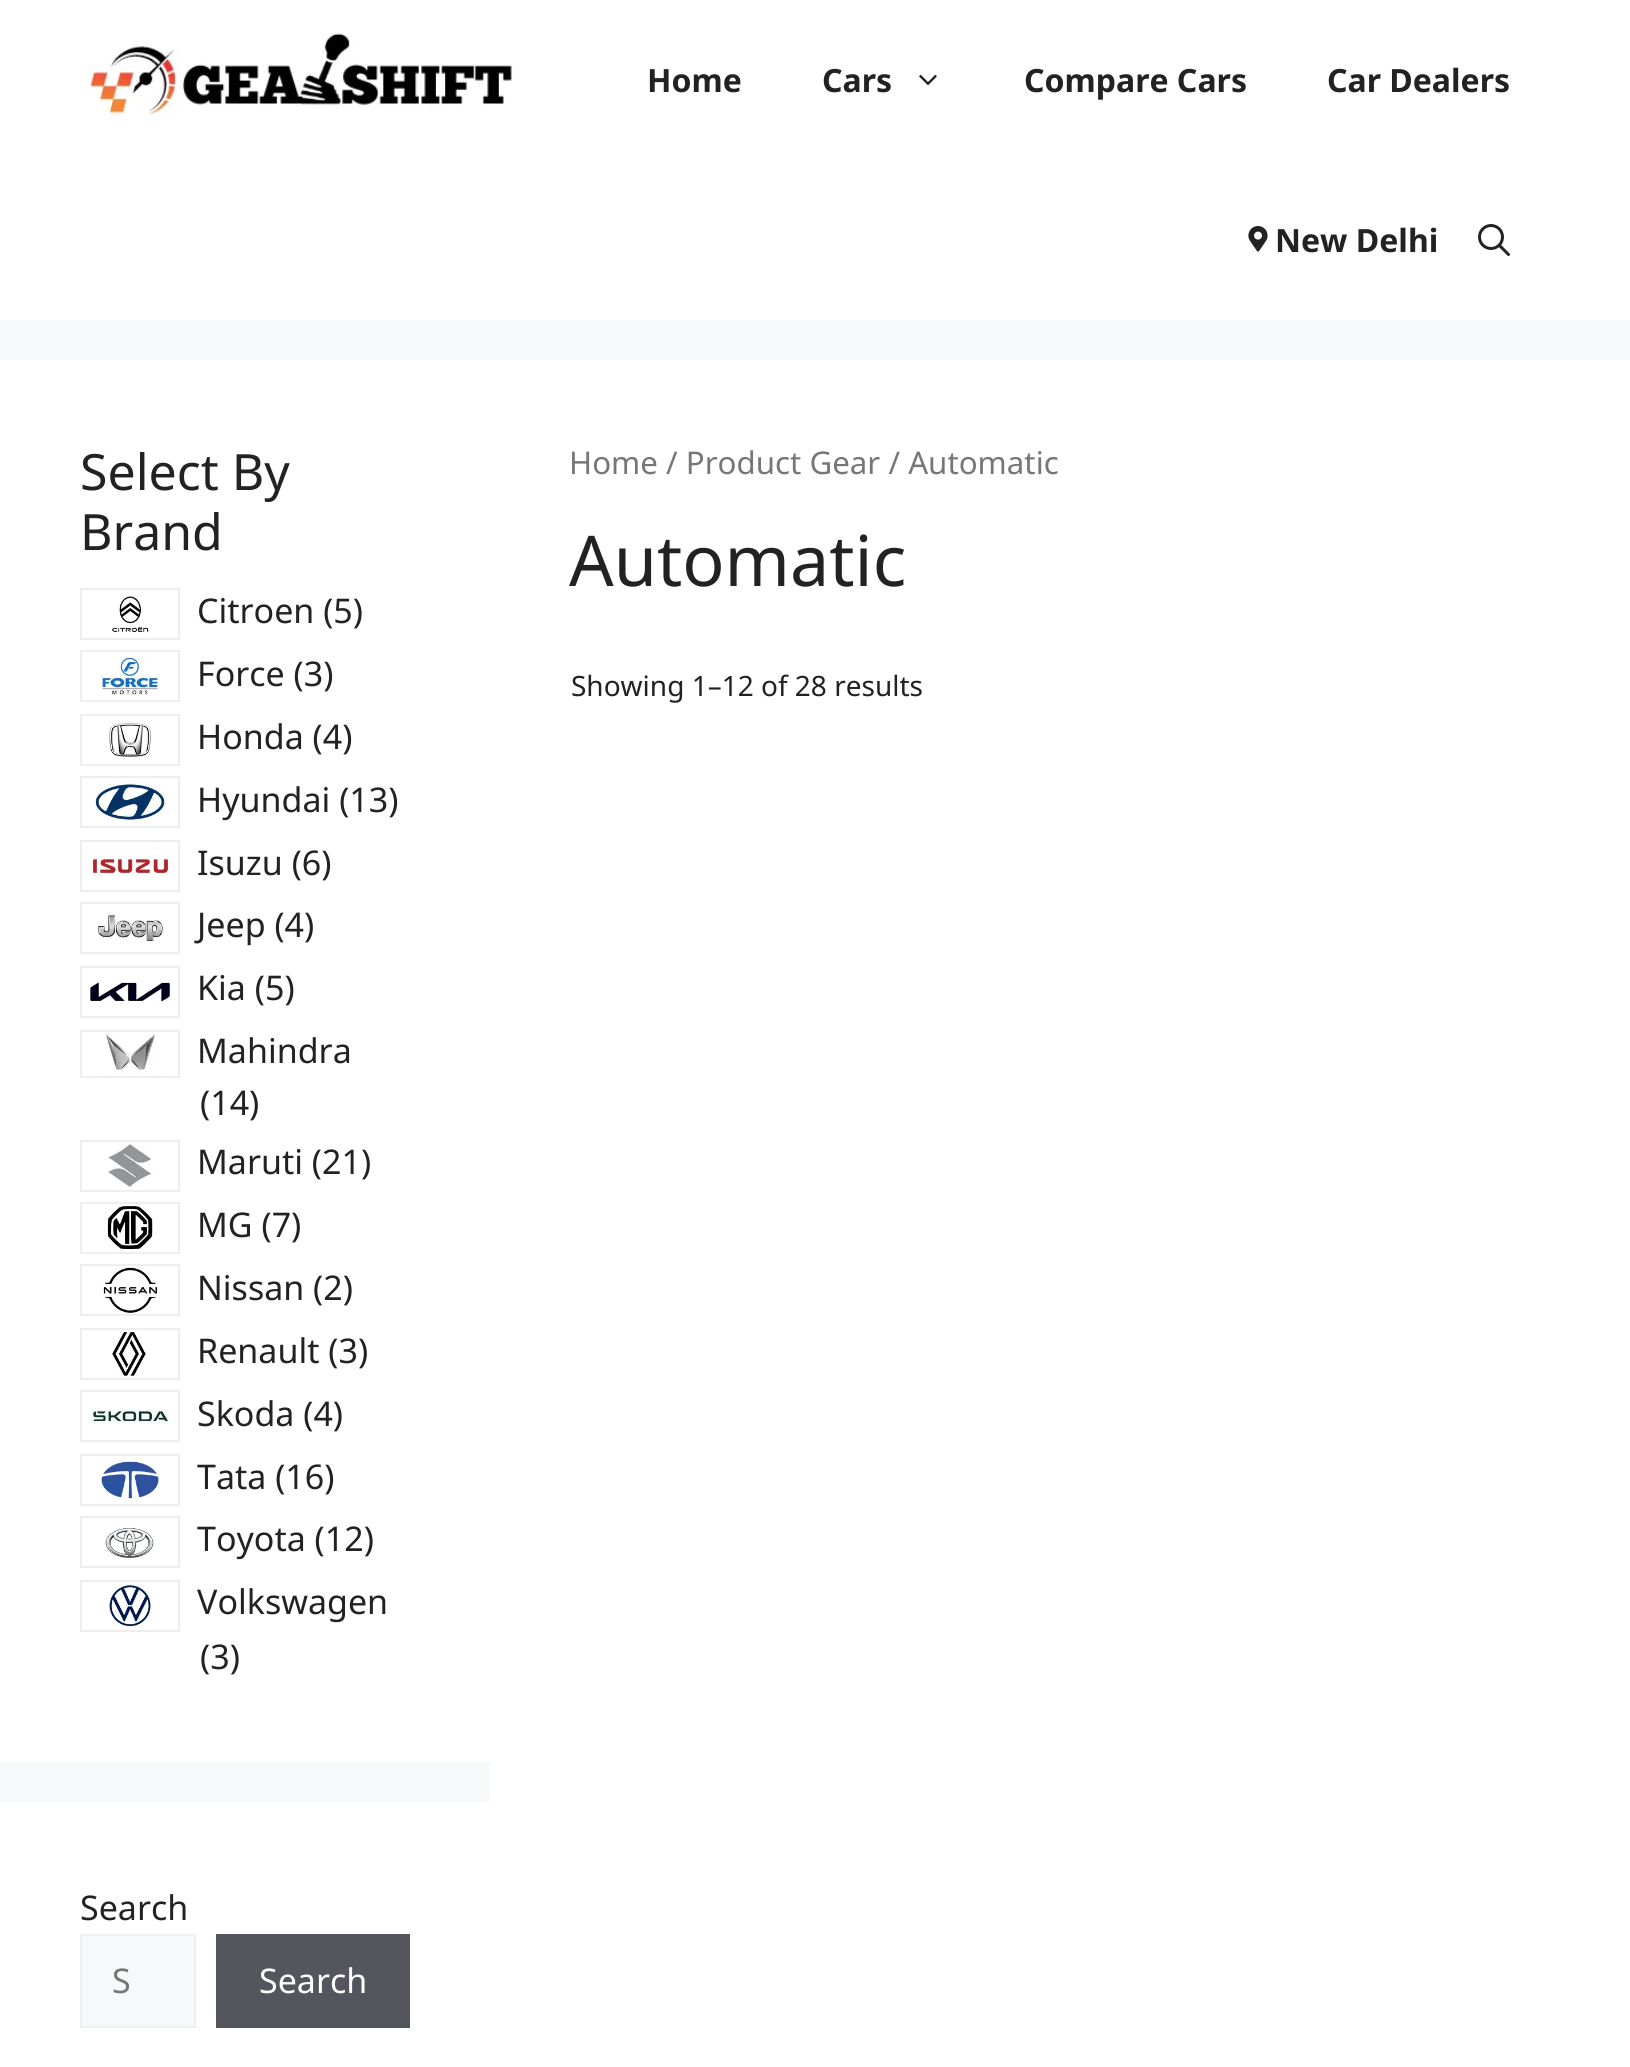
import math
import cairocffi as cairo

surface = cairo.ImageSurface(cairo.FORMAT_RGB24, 1630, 2067)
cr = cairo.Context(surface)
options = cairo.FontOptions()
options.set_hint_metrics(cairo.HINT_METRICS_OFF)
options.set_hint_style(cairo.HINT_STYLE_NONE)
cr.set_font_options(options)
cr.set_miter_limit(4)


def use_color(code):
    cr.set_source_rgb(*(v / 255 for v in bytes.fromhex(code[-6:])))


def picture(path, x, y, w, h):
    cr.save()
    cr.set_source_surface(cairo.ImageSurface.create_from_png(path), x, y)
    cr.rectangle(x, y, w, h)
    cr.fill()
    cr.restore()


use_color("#f7f8f9")
cr.paint()
use_color("#ffffff")
cr.rectangle(0, 0, 1630, 320)
cr.fill()
picture("img1.png", 89, 33, 426, 88)
cr.select_font_face("Noto Sans", cairo.FONT_SLANT_NORMAL, cairo.FONT_WEIGHT_BOLD)
cr.set_font_size(32)
use_color("#222222")
cr.move_to(647, 92)
cr.show_text("Home")
cr.move_to(822, 92)
cr.show_text("Cars")
picture("img2.png", 919, 74, 18, 12)
cr.move_to(1024, 92)
cr.show_text("Compare Cars")
cr.move_to(1327, 92)
cr.show_text("Car Dealers")
picture("img3.png", 1248, 226, 20, 26)
cr.move_to(1275, 252)
cr.show_text("New Delhi")
picture("img4.png", 1478, 224, 32, 32)
use_color("#ffffff")
cr.rectangle(0, 360, 490, 1402)
cr.fill()
cr.select_font_face("Noto Sans")
cr.set_font_size(50)
use_color("#222222")
cr.move_to(80, 490)
cr.show_text("Select By")
cr.move_to(80, 550)
cr.show_text("Brand")
cr.rectangle(81, 589, 98, 50)
use_color("#eeeeee")
cr.stroke()
picture("img5.png", 112, 595, 37, 38)
cr.set_font_size(34)
use_color("#222222")
cr.move_to(197, 623)
cr.show_text("Citroen (5)")
cr.rectangle(81, 651, 98, 50)
use_color("#eeeeee")
cr.stroke()
picture("img6.png", 100, 656, 60, 40)
use_color("#222222")
cr.move_to(197, 686)
cr.show_text("Force (3)")
cr.rectangle(81, 715, 98, 50)
use_color("#eeeeee")
cr.stroke()
picture("img7.png", 109, 723, 42, 34)
use_color("#222222")
cr.move_to(197, 749)
cr.show_text("Honda (4)")
cr.rectangle(81, 777, 98, 50)
use_color("#eeeeee")
cr.stroke()
picture("img8.png", 95, 783, 70, 38)
use_color("#222222")
cr.move_to(197, 812)
cr.show_text("Hyundai (13)")
cr.rectangle(81, 841, 98, 50)
use_color("#eeeeee")
cr.stroke()
picture("img9.png", 91, 856, 78, 18)
use_color("#222222")
cr.move_to(197, 875)
cr.show_text("Isuzu (6)")
cr.rectangle(81, 903, 98, 50)
use_color("#eeeeee")
cr.stroke()
picture("img10.png", 98, 915, 65, 27)
use_color("#222222")
cr.move_to(197, 937)
cr.show_text("Jeep (4)")
cr.rectangle(81, 967, 98, 50)
use_color("#eeeeee")
cr.stroke()
picture("img11.png", 90, 982, 81, 21)
use_color("#222222")
cr.move_to(197, 1000)
cr.show_text("Kia (5)")
cr.rectangle(81, 1031, 98, 46)
use_color("#eeeeee")
cr.stroke()
picture("img12.png", 99, 1034, 67, 42)
use_color("#222222")
cr.move_to(197, 1063)
cr.show_text("Mahindra")
cr.move_to(200, 1115)
cr.show_text("(14)")
cr.rectangle(81, 1141, 98, 50)
use_color("#eeeeee")
cr.stroke()
picture("img13.png", 108, 1144, 45, 44)
use_color("#222222")
cr.move_to(197, 1174)
cr.show_text("Maruti (21)")
cr.rectangle(81, 1203, 98, 50)
use_color("#eeeeee")
cr.stroke()
picture("img14.png", 107, 1206, 46, 44)
use_color("#222222")
cr.move_to(197, 1237)
cr.show_text("MG (7)")
cr.rectangle(81, 1265, 98, 50)
use_color("#eeeeee")
cr.stroke()
picture("img15.png", 103, 1266, 54, 47)
use_color("#222222")
cr.move_to(197, 1300)
cr.show_text("Nissan (2)")
cr.rectangle(81, 1329, 98, 50)
use_color("#eeeeee")
cr.stroke()
picture("img16.png", 112, 1332, 34, 44)
use_color("#222222")
cr.move_to(197, 1363)
cr.show_text("Renault (3)")
cr.rectangle(81, 1391, 98, 50)
use_color("#eeeeee")
cr.stroke()
picture("img17.png", 91, 1410, 78, 14)
use_color("#222222")
cr.move_to(197, 1426)
cr.show_text("Skoda (4)")
cr.rectangle(81, 1455, 98, 50)
use_color("#eeeeee")
cr.stroke()
picture("img18.png", 100, 1460, 60, 42)
use_color("#222222")
cr.move_to(197, 1489)
cr.show_text("Tata (16)")
cr.rectangle(81, 1517, 98, 50)
use_color("#eeeeee")
cr.stroke()
picture("img19.png", 105, 1527, 50, 32)
use_color("#222222")
cr.move_to(197, 1551)
cr.show_text("Toyota (12)")
cr.rectangle(81, 1581, 98, 50)
use_color("#eeeeee")
cr.stroke()
picture("img20.png", 109, 1584, 42, 44)
use_color("#222222")
cr.move_to(197, 1614)
cr.show_text("Volkswagen")
cr.move_to(200, 1669)
cr.show_text("(3)")
use_color("#ffffff")
cr.rectangle(0, 1802, 490, 265)
cr.fill()
use_color("#222222")
cr.move_to(80, 1920)
cr.show_text("Search")
use_color("#f7f8f9")
cr.rectangle(81, 1935, 114, 92)
cr.fill_preserve()
use_color("#f0f0f0")
cr.stroke()
use_color("#767676")
cr.move_to(112, 1993)
cr.show_text("S")
use_color("#55555e")
cr.rectangle(216, 1934, 194, 94)
cr.fill()
use_color("#ffffff")
cr.move_to(259, 1993)
cr.show_text("Search")
cr.rectangle(490, 360, 1140, 1707)
cr.fill()
cr.set_font_size(31.25)
use_color("#767676")
cr.move_to(569, 474)
cr.show_text("Home / Product Gear / Automatic")
cr.set_font_size(70)
use_color("#222222")
cr.move_to(569, 586)
cr.show_text("Automatic")
cr.set_font_size(28)
cr.move_to(571, 696)
cr.show_text("Showing 1–12 of 28 results")
surface.write_to_png("result.png")
